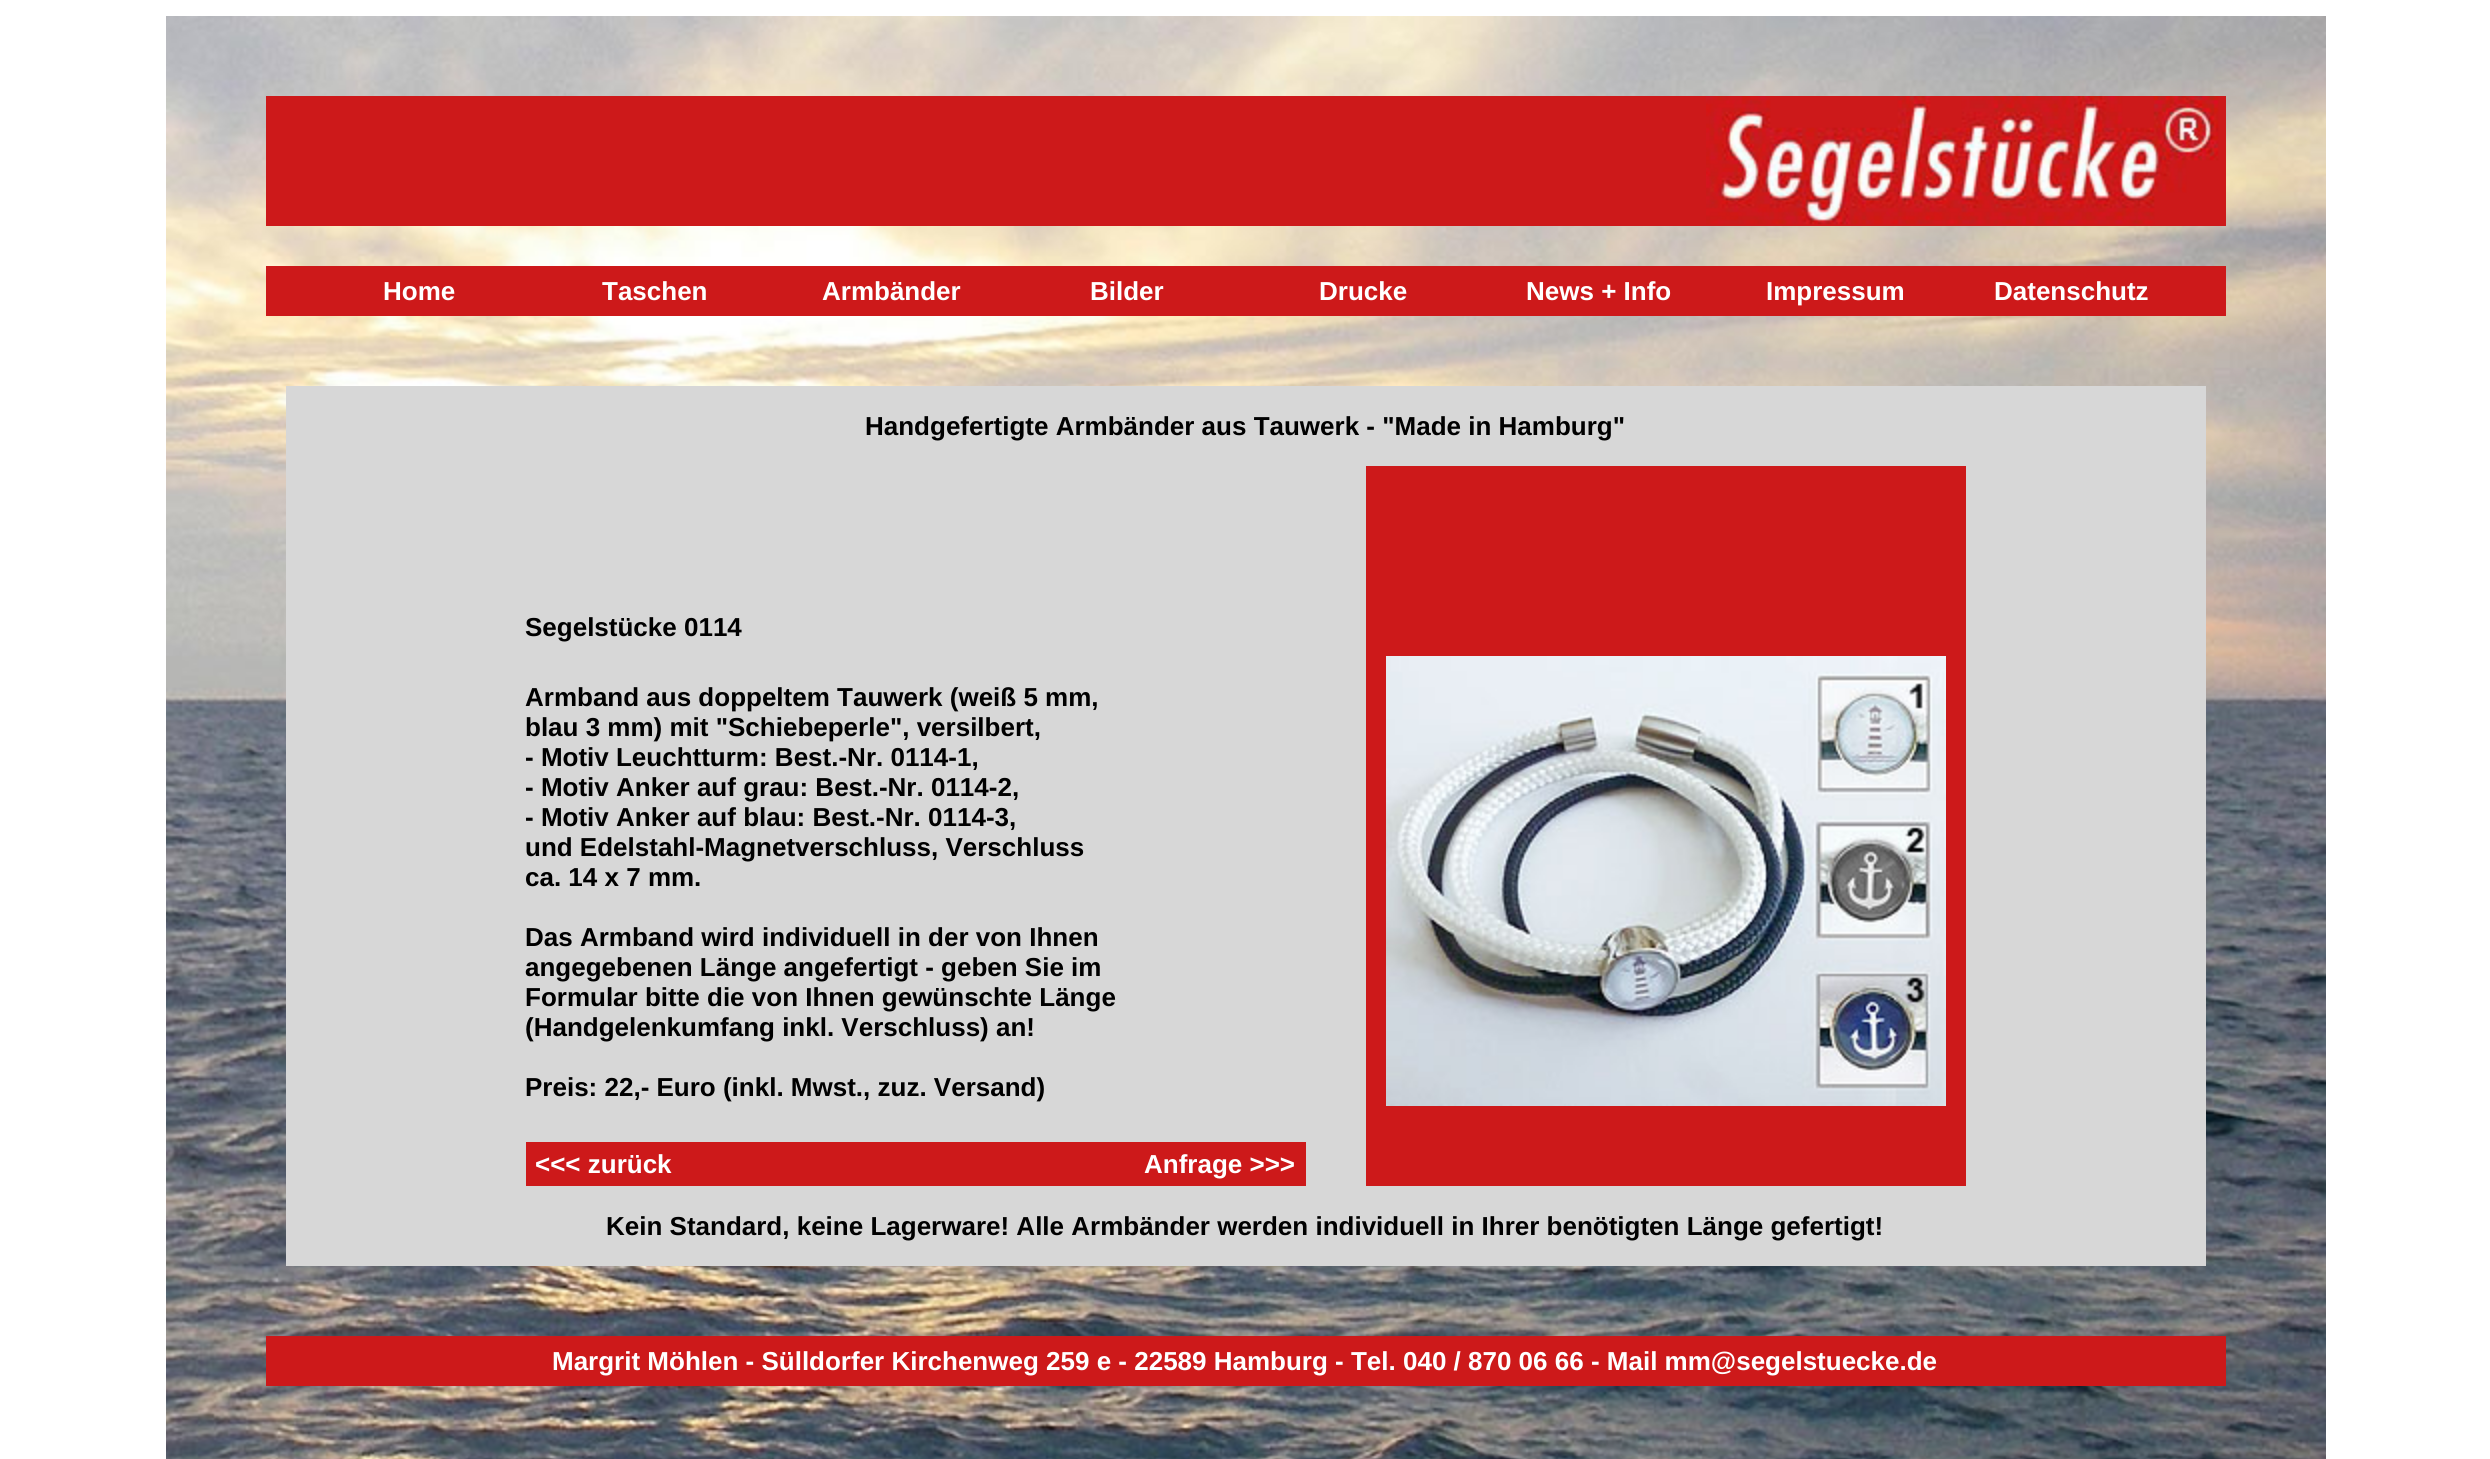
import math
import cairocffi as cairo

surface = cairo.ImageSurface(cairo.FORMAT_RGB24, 2490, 1459)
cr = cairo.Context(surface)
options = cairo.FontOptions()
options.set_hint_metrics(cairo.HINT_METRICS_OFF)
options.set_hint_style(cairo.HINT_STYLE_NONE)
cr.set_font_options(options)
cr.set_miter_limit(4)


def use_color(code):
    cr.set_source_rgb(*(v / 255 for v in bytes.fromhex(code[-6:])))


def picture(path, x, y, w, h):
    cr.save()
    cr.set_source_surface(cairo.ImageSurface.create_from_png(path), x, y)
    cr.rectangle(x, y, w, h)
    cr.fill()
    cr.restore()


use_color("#ffffff")
cr.paint()
picture("img1.png", 166, 16, 2160, 1443)
use_color("#cd191a")
cr.rectangle(266, 96, 1960, 130)
cr.fill()
picture("img2.png", 1706, 96, 513, 129)
cr.rectangle(266, 266, 1960, 50)
cr.fill()
cr.select_font_face("Liberation Sans", cairo.FONT_SLANT_NORMAL, cairo.FONT_WEIGHT_BOLD)
cr.set_font_size(26)
use_color("#ffffff")
cr.move_to(383, 300)
cr.show_text("Home")
cr.move_to(602, 300)
cr.show_text("Taschen")
cr.move_to(822, 300)
cr.show_text("Armbänder")
cr.move_to(1090, 300)
cr.show_text("Bilder")
cr.move_to(1319, 300)
cr.show_text("Drucke")
cr.move_to(1526, 300)
cr.show_text("News + Info")
cr.move_to(1766, 300)
cr.show_text("Impressum")
cr.move_to(1994, 300)
cr.show_text("Datenschutz")
use_color("#d7d7d7")
cr.rectangle(286, 386, 1920, 880)
cr.fill()
use_color("#000000")
cr.move_to(865, 435)
cr.show_text("Handgefertigte Armbänder aus Tauwerk - \"Made in Hamburg\"")
cr.move_to(525, 636)
cr.show_text("Segelstücke 0114")
cr.move_to(525, 706)
cr.show_text("Armband aus doppeltem Tauwerk (weiß 5 mm,")
cr.move_to(525, 736)
cr.show_text("blau 3 mm) mit \"Schiebeperle\", versilbert,")
cr.move_to(525, 766)
cr.show_text("- Motiv Leuchtturm: Best.-Nr. 0114-1,")
cr.move_to(525, 796)
cr.show_text("- Motiv Anker auf grau: Best.-Nr. 0114-2,")
cr.move_to(525, 826)
cr.show_text("- Motiv Anker auf blau: Best.-Nr. 0114-3,")
cr.move_to(525, 856)
cr.show_text("und Edelstahl-Magnetverschluss, Verschluss")
cr.move_to(525, 886)
cr.show_text("ca. 14 x 7 mm.")
cr.move_to(525, 946)
cr.show_text("Das Armband wird individuell in der von Ihnen")
cr.move_to(525, 976)
cr.show_text("angegebenen Länge angefertigt - geben Sie im")
cr.move_to(525, 1006)
cr.show_text("Formular bitte die von Ihnen gewünschte Länge")
cr.move_to(525, 1036)
cr.show_text("(Handgelenkumfang inkl. Verschluss) an!")
cr.move_to(525, 1096)
cr.show_text("Preis: 22,- Euro (inkl. Mwst., zuz. Versand)")
use_color("#cd191a")
cr.rectangle(526, 1142, 780, 44)
cr.fill()
use_color("#ffffff")
cr.move_to(535, 1173)
cr.show_text("<<< zurück")
cr.move_to(1144, 1173)
cr.show_text("Anfrage >>>")
use_color("#cd191a")
cr.rectangle(1366, 466, 600, 720)
cr.fill()
picture("img3.png", 1386, 656, 560, 450)
use_color("#000000")
cr.move_to(606, 1235)
cr.show_text("Kein Standard, keine Lagerware! Alle Armbänder werden individuell in Ihrer benötigten Länge gefertigt!")
use_color("#cd191a")
cr.rectangle(266, 1336, 1960, 50)
cr.fill()
use_color("#ffffff")
cr.move_to(552, 1370)
cr.show_text("Margrit Möhlen - Sülldorfer Kirchenweg 259 e - 22589 Hamburg - Tel. 040 / 870 06 66 - Mail mm@segelstuecke.de")
surface.write_to_png("result.png")
